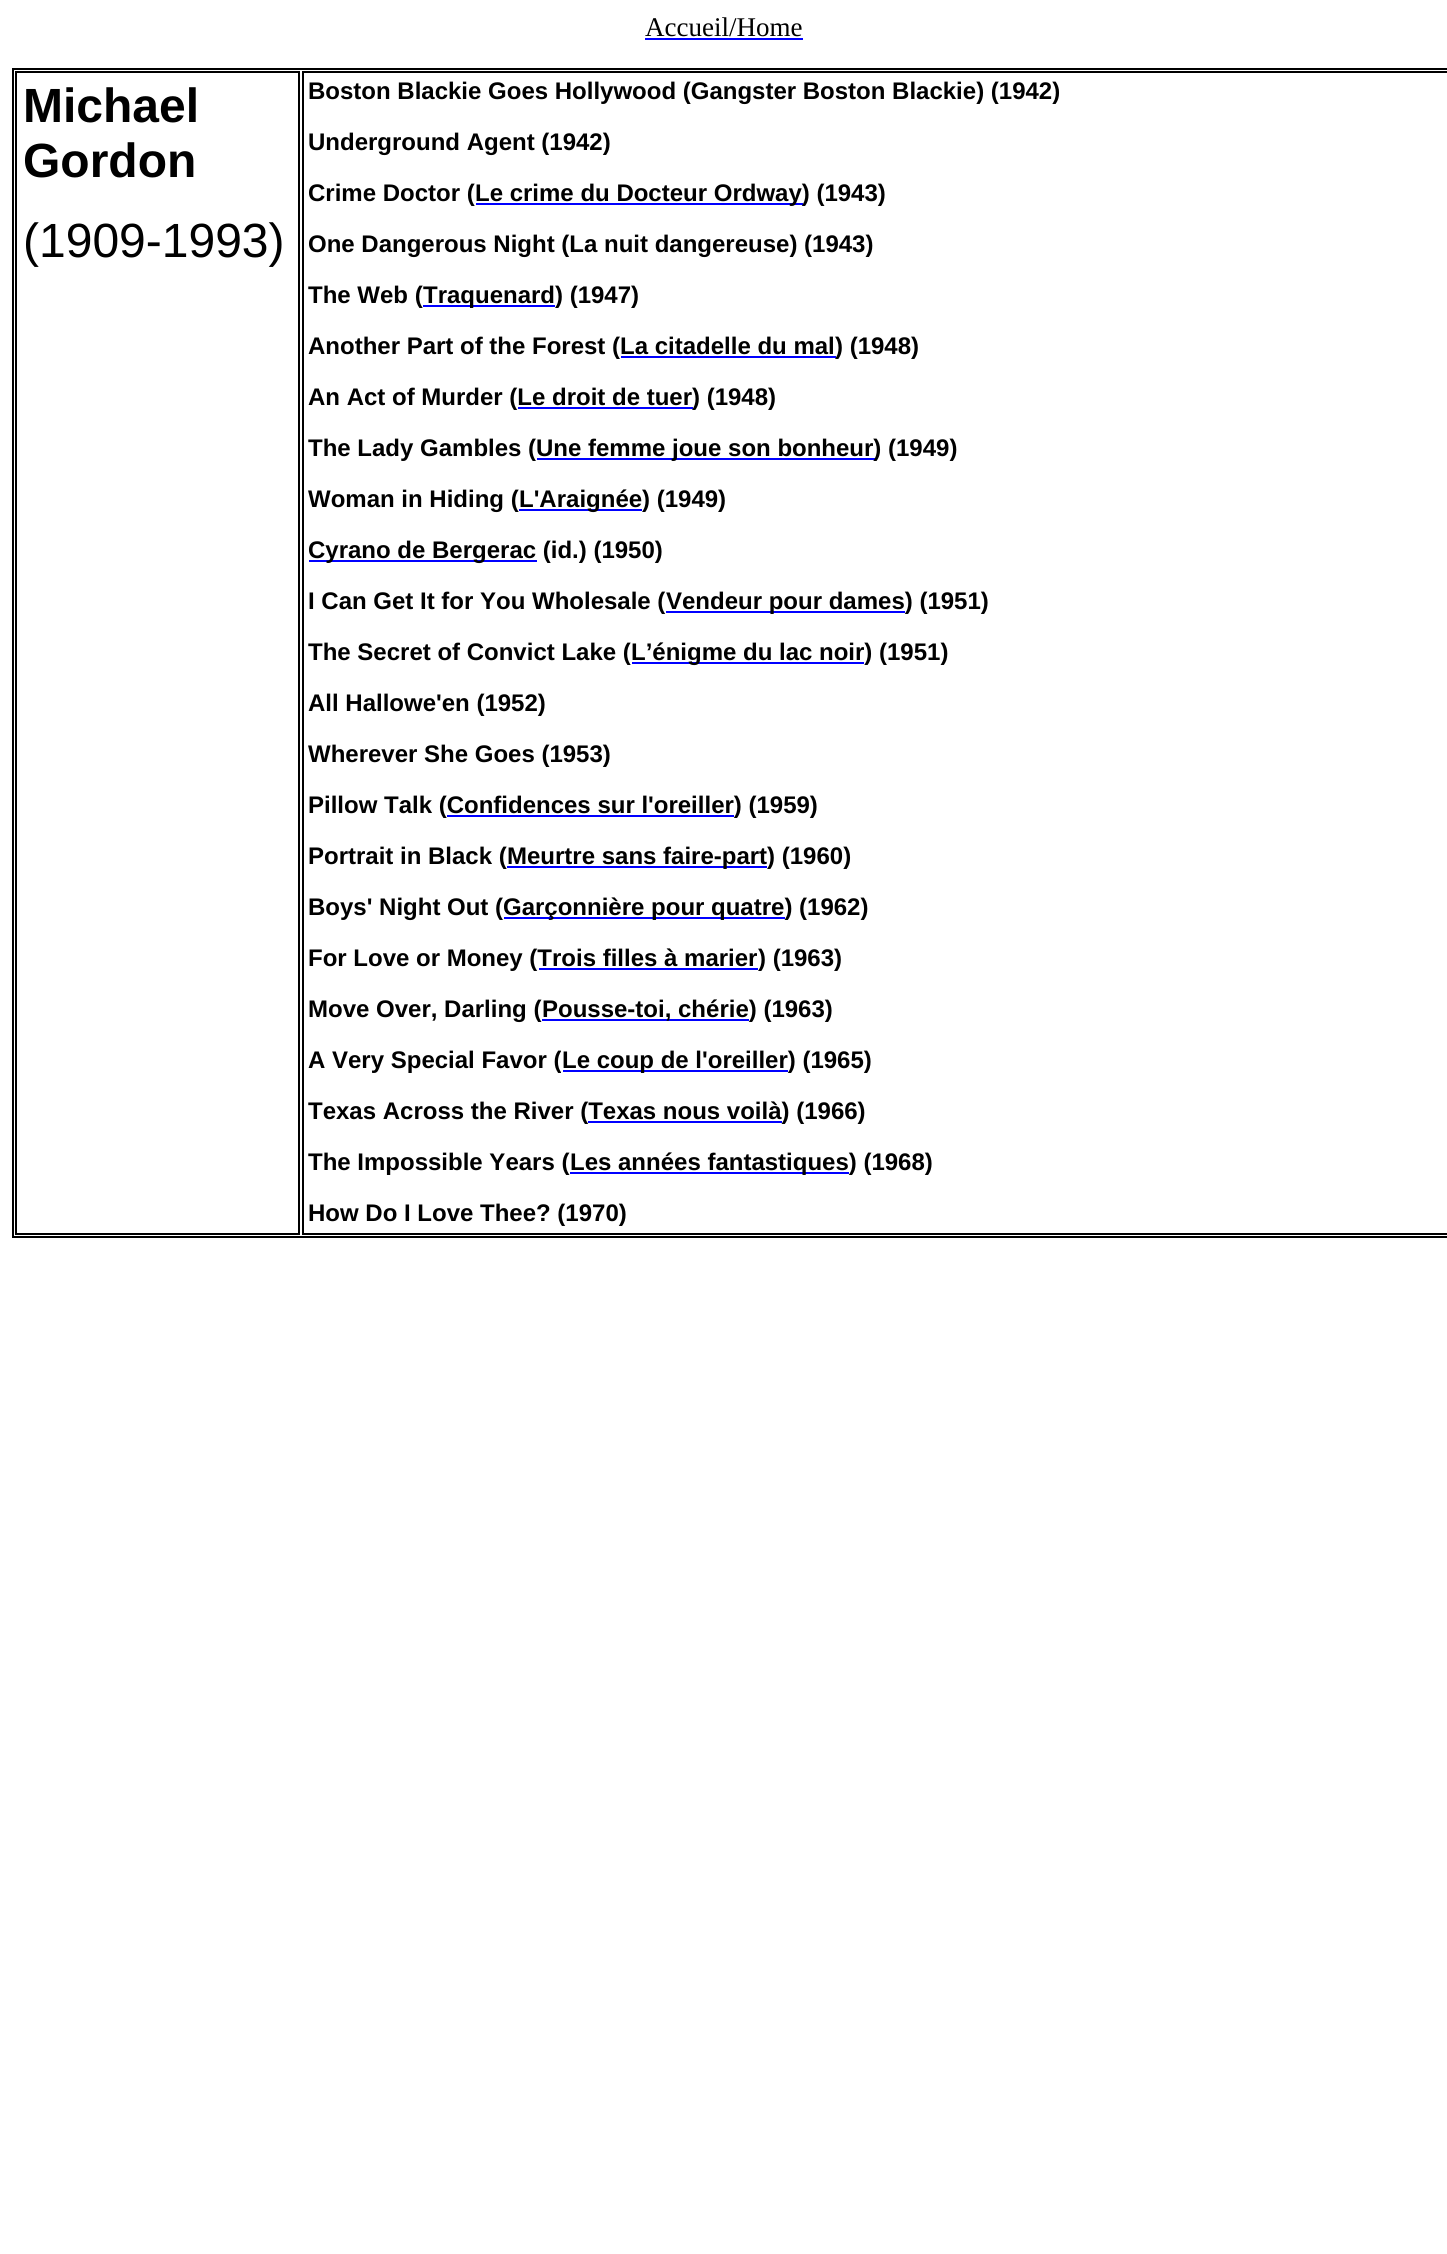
import math
import cairocffi as cairo

surface = cairo.ImageSurface(cairo.FORMAT_RGB24, 1447, 2254)
cr = cairo.Context(surface)
options = cairo.FontOptions()
options.set_hint_metrics(cairo.HINT_METRICS_OFF)
options.set_hint_style(cairo.HINT_STYLE_NONE)
cr.set_font_options(options)
cr.set_miter_limit(4)


def use_color(code):
    cr.set_source_rgb(*(v / 255 for v in bytes.fromhex(code[-6:])))


use_color("#ffffff")
cr.paint()
cr.select_font_face("Liberation Serif")
cr.set_font_size(27)
use_color("#000000")
cr.move_to(645, 36)
cr.show_text("Accueil/Home")
use_color("#0000ff")
cr.rectangle(645, 38, 158, 2)
cr.fill()
cr.rectangle(13, 69, 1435, 1168)
use_color("#000000")
cr.stroke()
cr.rectangle(16, 72, 283, 1162)
cr.stroke()
cr.select_font_face("Liberation Sans", cairo.FONT_SLANT_NORMAL, cairo.FONT_WEIGHT_BOLD)
cr.set_font_size(48)
cr.move_to(23, 122)
cr.show_text("Michael")
cr.move_to(23, 177)
cr.show_text("Gordon")
cr.select_font_face("Liberation Sans")
cr.move_to(23, 257)
cr.show_text("(1909-1993)")
cr.rectangle(303, 72, 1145, 1162)
cr.stroke()
cr.select_font_face("Liberation Sans", cairo.FONT_SLANT_NORMAL, cairo.FONT_WEIGHT_BOLD)
cr.set_font_size(24)
cr.move_to(308, 99)
cr.show_text("Boston Blackie Goes Hollywood (Gangster Boston Blackie) (1942)")
cr.move_to(308, 150)
cr.show_text("Underground Agent (1942)")
cr.move_to(308, 201)
cr.show_text("Crime Doctor (")
use_color("#0000ff")
cr.rectangle(476, 203, 327, 2)
cr.fill()
use_color("#000000")
cr.move_to(475, 201)
cr.show_text("Le crime du Docteur Ordway) (1943)")
cr.move_to(308, 252)
cr.show_text("One Dangerous Night (La nuit dangereuse) (1943)")
cr.move_to(308, 303)
cr.show_text("The Web (")
use_color("#0000ff")
cr.rectangle(423, 305, 132, 2)
cr.fill()
use_color("#000000")
cr.move_to(423, 303)
cr.show_text("Traquenard) (1947)")
cr.move_to(308, 354)
cr.show_text("Another Part of the Forest (La citadelle du mal")
use_color("#0000ff")
cr.rectangle(621, 356, 215, 2)
cr.fill()
use_color("#000000")
cr.move_to(835, 354)
cr.show_text(") (1948)")
cr.move_to(308, 405)
cr.show_text("An Act of Murder (Le droit de tuer")
use_color("#0000ff")
cr.rectangle(518, 407, 175, 2)
cr.fill()
use_color("#000000")
cr.move_to(692, 405)
cr.show_text(") (1948)")
cr.move_to(308, 456)
cr.show_text("The Lady Gambles (")
use_color("#0000ff")
cr.rectangle(537, 458, 338, 2)
cr.fill()
use_color("#000000")
cr.move_to(536, 456)
cr.show_text("Une femme joue son bonheur) (1949)")
cr.move_to(308, 507)
cr.show_text("Woman in Hiding (")
use_color("#0000ff")
cr.rectangle(519, 509, 123, 2)
cr.fill()
use_color("#000000")
cr.move_to(519, 507)
cr.show_text("L'Araignée) (1949)")
use_color("#0000ff")
cr.rectangle(309, 560, 228, 2)
cr.fill()
use_color("#000000")
cr.move_to(308, 558)
cr.show_text("Cyrano de Bergerac (id.) (1950)")
cr.move_to(308, 609)
cr.show_text("I Can Get It for You Wholesale (")
use_color("#0000ff")
cr.rectangle(666, 611, 239, 2)
cr.fill()
use_color("#000000")
cr.move_to(666, 609)
cr.show_text("Vendeur pour dames) (1951)")
cr.move_to(308, 660)
cr.show_text("The Secret of Convict Lake (")
use_color("#0000ff")
cr.rectangle(632, 662, 232, 2)
cr.fill()
use_color("#000000")
cr.move_to(631, 660)
cr.show_text("L’énigme du lac noir) (1951)")
cr.move_to(308, 711)
cr.show_text("All Hallowe'en (1952)")
cr.move_to(308, 762)
cr.show_text("Wherever She Goes (1953)")
cr.move_to(308, 813)
cr.show_text("Pillow Talk (Confidences sur l'oreiller) (1959)")
use_color("#0000ff")
cr.rectangle(447, 815, 287, 2)
cr.fill()
use_color("#000000")
cr.move_to(308, 864)
cr.show_text("Portrait in Black (")
use_color("#0000ff")
cr.rectangle(507, 866, 260, 2)
cr.fill()
use_color("#000000")
cr.move_to(507, 864)
cr.show_text("Meurtre sans faire-part) (1960)")
cr.move_to(308, 915)
cr.show_text("Boys' Night Out (")
use_color("#0000ff")
cr.rectangle(504, 917, 281, 2)
cr.fill()
use_color("#000000")
cr.move_to(503, 915)
cr.show_text("Garçonnière pour quatre) (1962)")
cr.move_to(308, 966)
cr.show_text("For Love or Money (Trois filles à marier")
use_color("#0000ff")
cr.rectangle(539, 968, 219, 2)
cr.fill()
use_color("#000000")
cr.move_to(758, 966)
cr.show_text(") (1963)")
cr.move_to(308, 1017)
cr.show_text("Move Over, Darling (")
use_color("#0000ff")
cr.rectangle(542, 1019, 207, 2)
cr.fill()
use_color("#000000")
cr.move_to(542, 1017)
cr.show_text("Pousse-toi, chérie) (1963)")
cr.move_to(308, 1068)
cr.show_text("A Very Special Favor (")
use_color("#0000ff")
cr.rectangle(563, 1070, 225, 2)
cr.fill()
use_color("#000000")
cr.move_to(562, 1068)
cr.show_text("Le coup de l'oreiller) (1965)")
cr.move_to(308, 1119)
cr.show_text("Texas Across the River (Texas nous voilà) (1966)")
use_color("#0000ff")
cr.rectangle(588, 1121, 194, 2)
cr.fill()
use_color("#000000")
cr.move_to(308, 1170)
cr.show_text("The Impossible Years (")
use_color("#0000ff")
cr.rectangle(570, 1172, 279, 2)
cr.fill()
use_color("#000000")
cr.move_to(570, 1170)
cr.show_text("Les années fantastiques) (1968)")
cr.move_to(308, 1221)
cr.show_text("How Do I Love Thee? (1970)")
surface.write_to_png("result.png")
